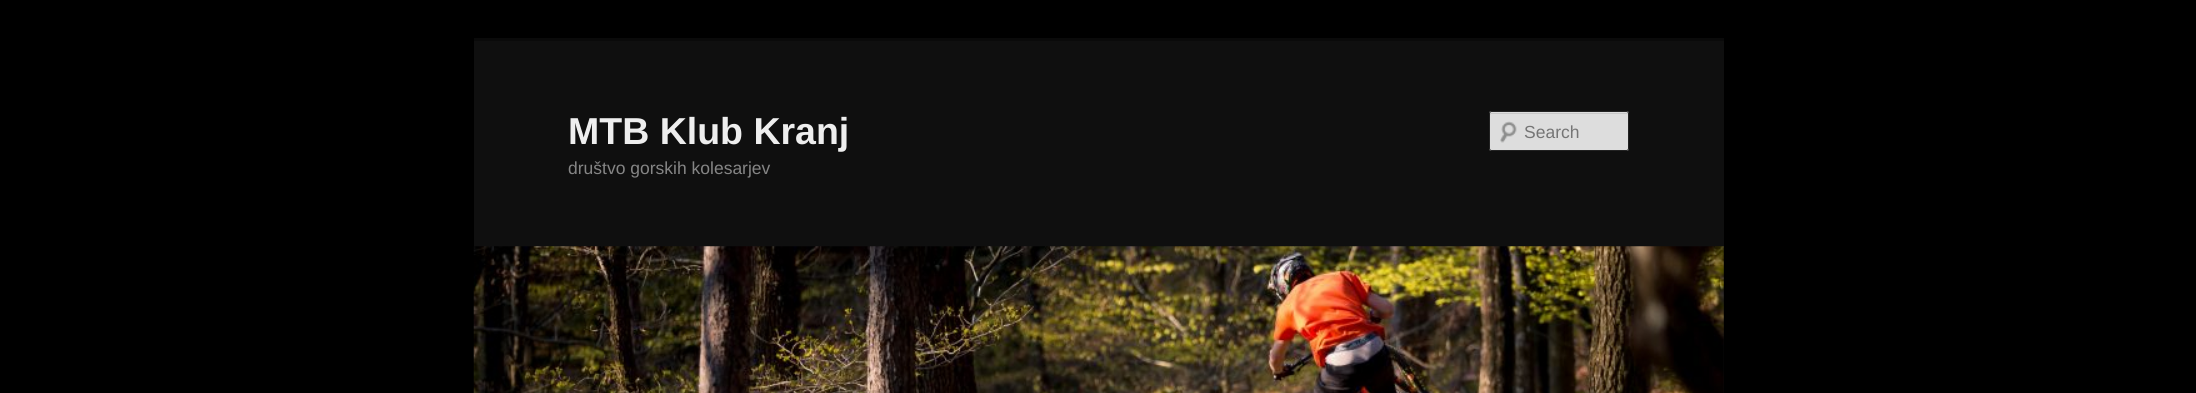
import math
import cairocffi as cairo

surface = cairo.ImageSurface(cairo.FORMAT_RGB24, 2196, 393)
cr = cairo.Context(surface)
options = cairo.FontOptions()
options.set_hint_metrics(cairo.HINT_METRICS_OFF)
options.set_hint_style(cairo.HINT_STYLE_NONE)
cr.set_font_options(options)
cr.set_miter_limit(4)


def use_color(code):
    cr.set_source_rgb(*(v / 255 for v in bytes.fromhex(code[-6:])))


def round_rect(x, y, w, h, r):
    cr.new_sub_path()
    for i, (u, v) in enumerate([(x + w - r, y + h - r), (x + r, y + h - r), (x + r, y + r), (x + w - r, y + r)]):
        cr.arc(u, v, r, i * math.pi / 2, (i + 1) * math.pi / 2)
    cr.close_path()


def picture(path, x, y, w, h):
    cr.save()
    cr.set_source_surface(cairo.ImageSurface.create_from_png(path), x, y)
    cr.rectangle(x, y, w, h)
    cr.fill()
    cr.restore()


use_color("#000000")
cr.paint()
use_color("#0f0f0f")
cr.rectangle(474, 41, 1250, 352)
cr.fill()
use_color("#0a0a0a")
cr.rectangle(474, 38, 1250, 3)
cr.fill()
cr.select_font_face("Liberation Sans", cairo.FONT_SLANT_NORMAL, cairo.FONT_WEIGHT_BOLD)
cr.set_font_size(37.5)
use_color("#eeeeee")
cr.move_to(568, 144)
cr.show_text("MTB Klub Kranj")
cr.select_font_face("Liberation Sans")
cr.set_font_size(17.5)
use_color("#858585")
cr.move_to(568, 174)
cr.show_text("društvo gorskih kolesarjev")
use_color("#dddddd")
round_rect(1489, 111, 140, 40, 2.5)
cr.fill()
picture("img1.png", 1500, 121, 17, 22)
use_color("#c7c7c7")
cr.new_path()
cr.move_to(1491, 114)
cr.line_to(1626, 114)
cr.curve_to(1627, 114, 1628, 114, 1628, 115)
cr.curve_to(1628, 114, 1628, 113, 1627, 113)
cr.line_to(1491, 113)
cr.curve_to(1490, 113, 1490, 114, 1490, 115)
cr.close_path()
cr.fill()
round_rect(1489.5, 111.5, 139, 39, 2)
use_color("#222222")
cr.set_line_width(1)
cr.stroke()
use_color("#757575")
cr.move_to(1524, 138)
cr.show_text("Search")
picture("img2.png", 473, 246, 1251, 147)
surface.write_to_png("result.png")
